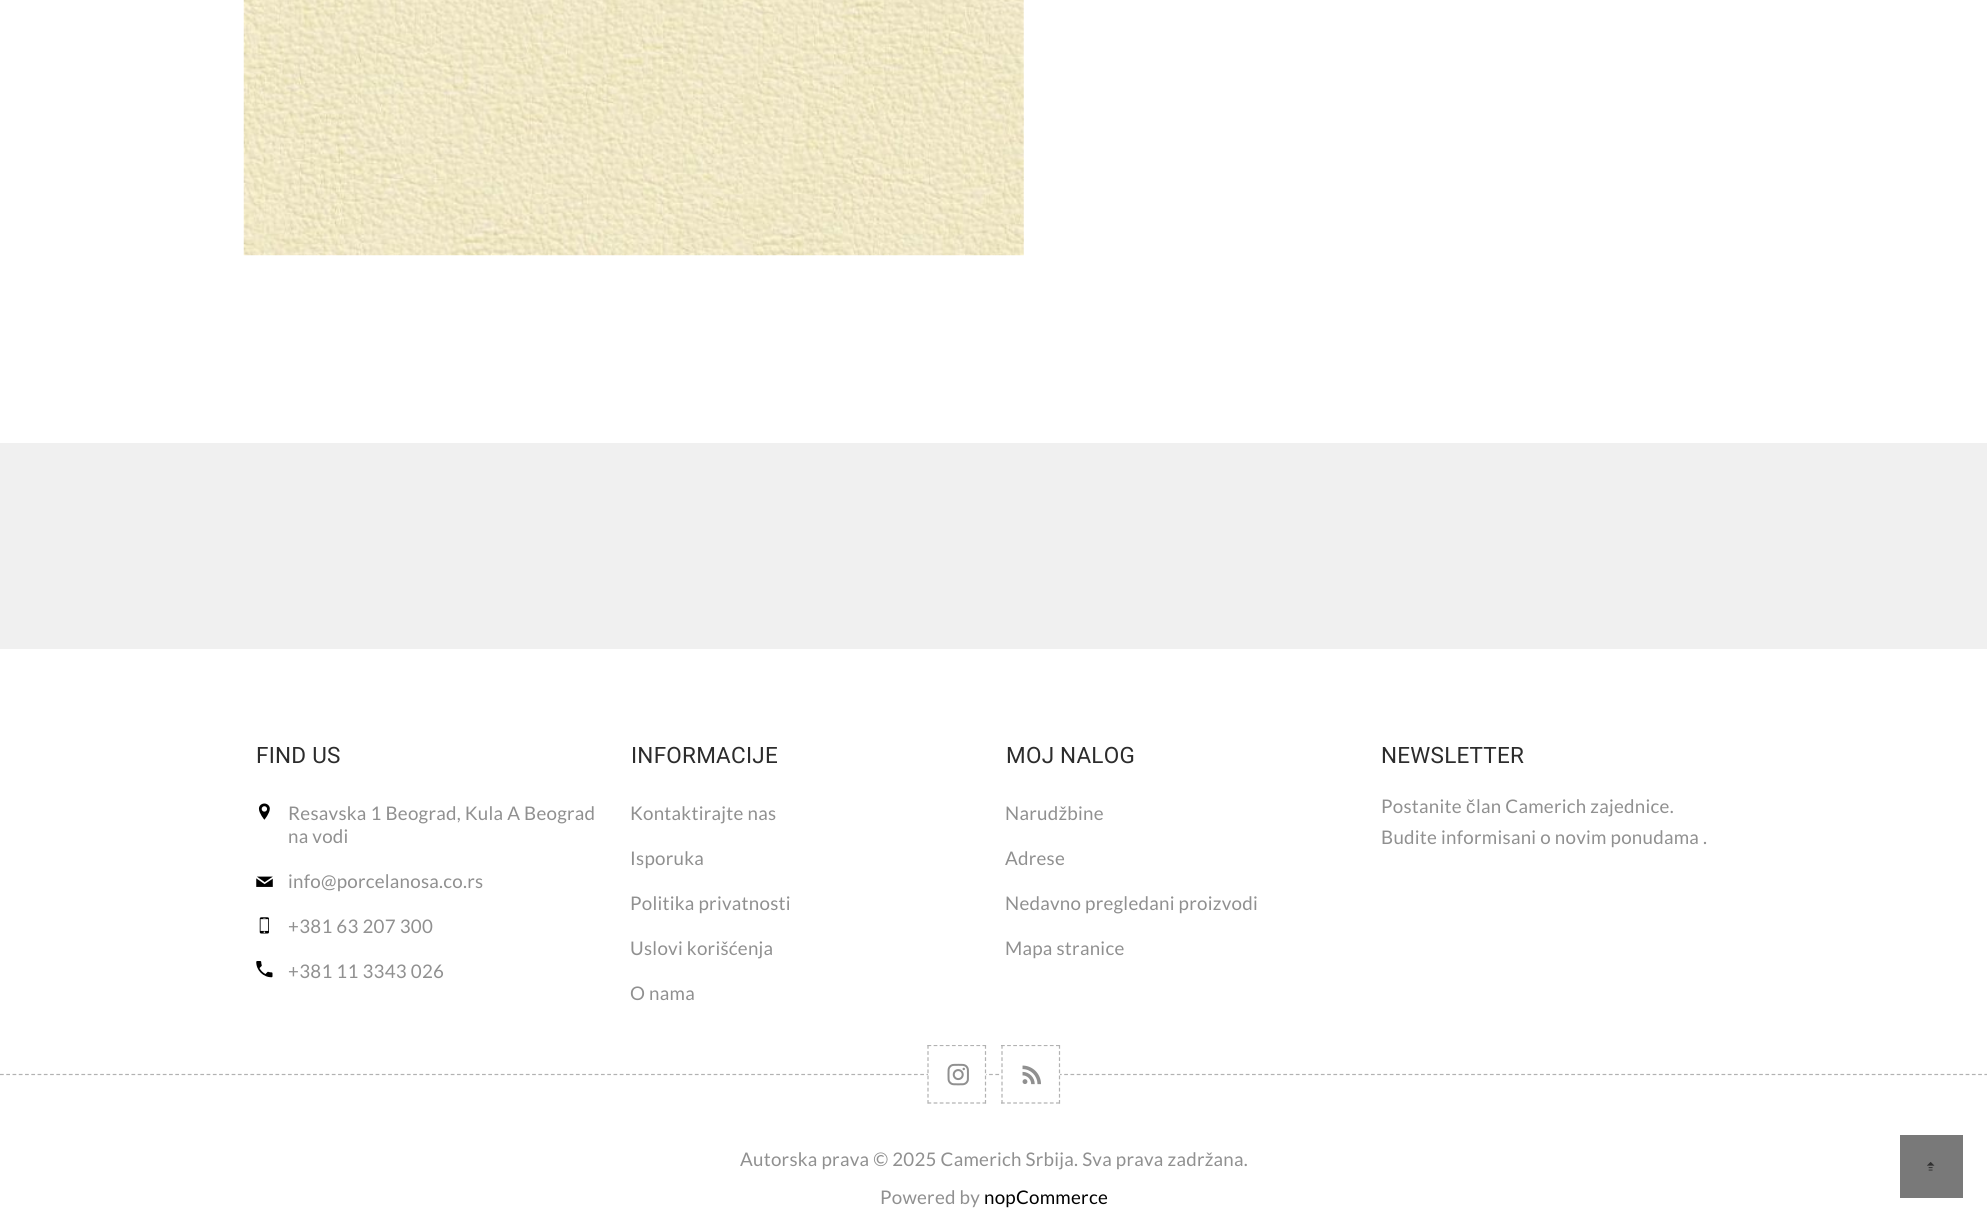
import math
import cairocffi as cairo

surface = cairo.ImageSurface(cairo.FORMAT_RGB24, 1987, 1222)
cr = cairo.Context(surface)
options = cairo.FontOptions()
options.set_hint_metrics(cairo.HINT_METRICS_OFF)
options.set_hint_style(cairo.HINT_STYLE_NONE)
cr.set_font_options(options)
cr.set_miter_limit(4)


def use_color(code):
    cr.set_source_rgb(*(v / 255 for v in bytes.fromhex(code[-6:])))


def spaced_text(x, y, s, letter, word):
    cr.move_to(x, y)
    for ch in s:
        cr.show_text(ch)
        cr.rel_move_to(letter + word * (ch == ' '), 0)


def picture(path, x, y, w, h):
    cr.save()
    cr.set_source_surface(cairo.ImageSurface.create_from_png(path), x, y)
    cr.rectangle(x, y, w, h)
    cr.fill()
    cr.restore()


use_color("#f0f0f0")
cr.paint()
use_color("#ffffff")
cr.rectangle(0, 0, 1987, 443)
cr.fill()
picture("img1.png", 243, 0, 781, 256)
cr.rectangle(0, 649, 1987, 573)
cr.fill()
cr.select_font_face("Roboto")
cr.set_font_size(22.5)
use_color("#2c2c2c")
spaced_text(256, 763, "FIND US", 0.25, 0)
picture("img2.png", 258, 803, 12, 17)
cr.select_font_face("Lato")
cr.set_font_size(18.75)
use_color("#909090")
spaced_text(288, 820, "Resavska 1 Beograd, Kula A Beograd", 0.25, 0)
spaced_text(288, 843, "na vodi", 0.25, 0)
picture("img3.png", 256, 876, 17, 11)
spaced_text(288, 888, "info@porcelanosa.co.rs", 0.25, 0)
picture("img4.png", 259, 917, 10, 17)
spaced_text(288, 933, "+381 63 207 300", 0.25, 0)
picture("img5.png", 256, 961, 17, 17)
spaced_text(288, 978, "+381 11 3343 026", 0.25, 0)
cr.select_font_face("Roboto")
cr.set_font_size(22.5)
use_color("#2c2c2c")
spaced_text(631, 763, "INFORMACIJE", 0.25, 0)
cr.select_font_face("Lato")
cr.set_font_size(18.75)
use_color("#909090")
spaced_text(630, 820, "Kontaktirajte nas", 0.25, 0)
spaced_text(630, 865, "Isporuka", 0.25, 0)
spaced_text(630, 910, "Politika privatnosti", 0.25, 0)
spaced_text(630, 955, "Uslovi korišćenja", 0.25, 0)
spaced_text(630, 1000, "O nama", 0.25, 0)
cr.select_font_face("Roboto")
cr.set_font_size(22.5)
use_color("#2c2c2c")
spaced_text(1006, 763, "MOJ NALOG", 0.25, 0)
cr.select_font_face("Lato")
cr.set_font_size(18.75)
use_color("#909090")
spaced_text(1005, 820, "Narudžbine", 0.25, 0)
spaced_text(1005, 865, "Adrese", 0.25, 0)
spaced_text(1005, 910, "Nedavno pregledani proizvodi", 0.25, 0)
spaced_text(1005, 955, "Mapa stranice", 0.25, 0)
cr.select_font_face("Roboto")
cr.set_font_size(22.5)
use_color("#2c2c2c")
spaced_text(1381, 763, "NEWSLETTER", 0.25, 0)
cr.select_font_face("Lato")
cr.set_font_size(18.75)
use_color("#909090")
spaced_text(1381, 813, "Postanite", 0.25, 0)
cr.select_font_face("Liberation Sans")
spaced_text(1466, 813, "č", 0.25, 0)
cr.select_font_face("Lato")
spaced_text(1476, 813, "lan Camerich zajednice.", 0.25, 0)
spaced_text(1381, 844, "Budite informisani o novim ponudama .", 0.25, 0)
cr.new_path()
cr.move_to(0, 1074.5)
cr.line_to(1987.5, 1074.5)
use_color("#b2b2b2")
cr.set_line_width(1.2)
cr.set_dash([3.75, 2.51])
cr.stroke()
use_color("#ffffff")
cr.rectangle(928, 1073, 58, 3)
cr.fill()
cr.save()
cr.rectangle(0, 1045, 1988, 99)
cr.clip()
cr.new_path()
cr.move_to(927.5, 1045.5)
cr.line_to(986, 1045.5)
use_color("#b2b2b2")
cr.set_dash([3.75, 2.36])
cr.stroke()
cr.restore()
cr.new_path()
cr.move_to(985.5, 1045)
cr.line_to(985.5, 1104)
cr.move_to(927.5, 1103)
cr.line_to(986, 1103)
cr.move_to(928, 1045)
cr.line_to(928, 1104)
use_color("#b2b2b2")
cr.set_dash([3.75, 2.36])
cr.stroke()
picture("img6.png", 947, 1063, 22, 23)
use_color("#ffffff")
cr.rectangle(1001, 1073, 59, 3)
cr.fill()
cr.save()
cr.rectangle(0, 1045, 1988, 99)
cr.clip()
cr.new_path()
cr.move_to(1001, 1045.5)
cr.line_to(1060, 1045.5)
use_color("#b2b2b2")
cr.stroke()
cr.restore()
cr.new_path()
cr.move_to(1059.5, 1045)
cr.line_to(1059.5, 1104)
cr.move_to(1001, 1103)
cr.line_to(1060, 1103)
cr.move_to(1002, 1045)
cr.line_to(1002, 1104)
use_color("#b2b2b2")
cr.stroke()
picture("img7.png", 1022, 1065, 19, 20)
use_color("#909090")
spaced_text(740, 1166, "Autorska prava © 2025 Camerich Srbija. Sva prava zadržana.", 0.25, 0)
spaced_text(880, 1204, "Powered by", 0.25, 0)
use_color("#000000")
spaced_text(984, 1204, "nopCommerce", 0.25, 0)
use_color("#797979")
cr.rectangle(1900, 1135, 63, 63)
cr.fill()
picture("img8.png", 1927, 1162, 8, 9)
surface.write_to_png("result.png")
